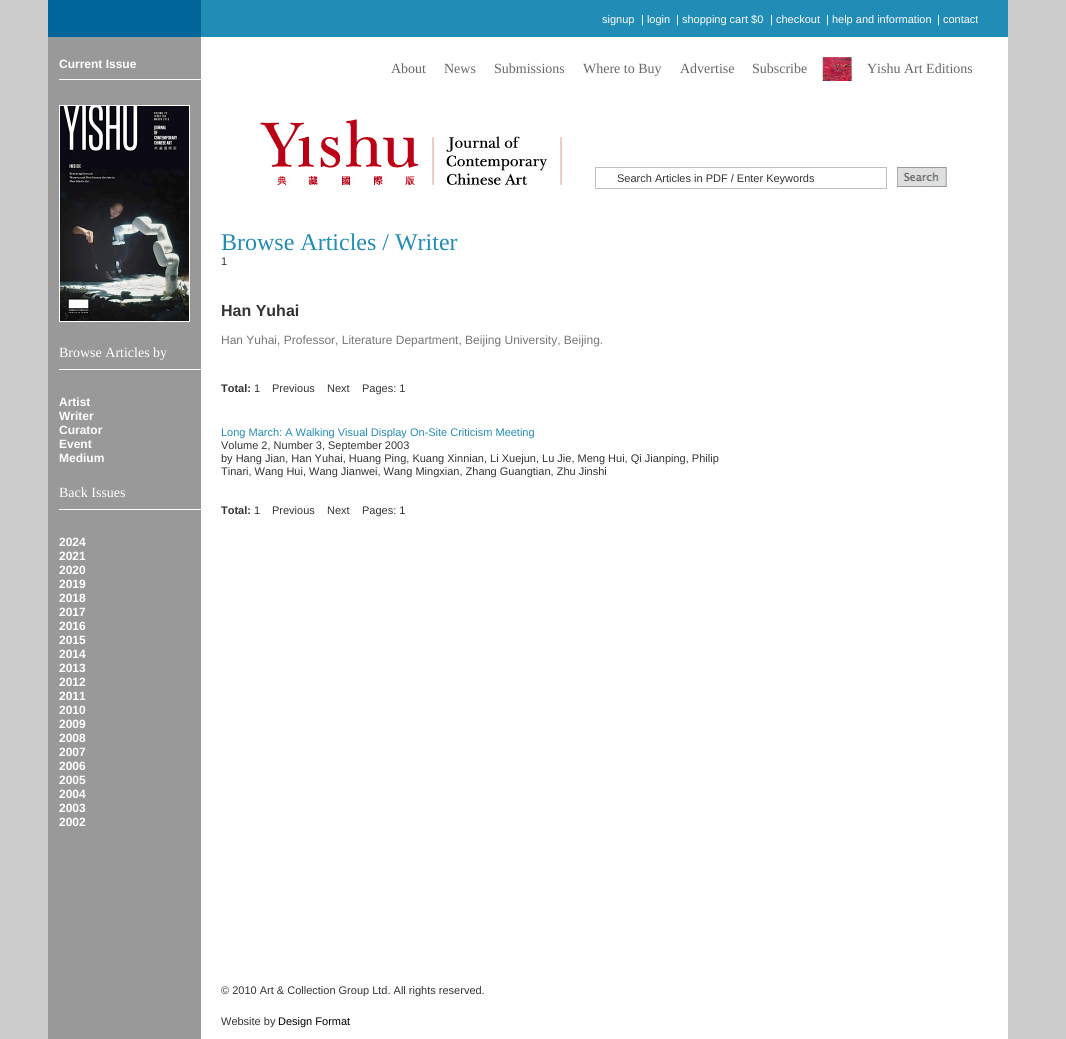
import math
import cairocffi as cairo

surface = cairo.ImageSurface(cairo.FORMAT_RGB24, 1066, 1039)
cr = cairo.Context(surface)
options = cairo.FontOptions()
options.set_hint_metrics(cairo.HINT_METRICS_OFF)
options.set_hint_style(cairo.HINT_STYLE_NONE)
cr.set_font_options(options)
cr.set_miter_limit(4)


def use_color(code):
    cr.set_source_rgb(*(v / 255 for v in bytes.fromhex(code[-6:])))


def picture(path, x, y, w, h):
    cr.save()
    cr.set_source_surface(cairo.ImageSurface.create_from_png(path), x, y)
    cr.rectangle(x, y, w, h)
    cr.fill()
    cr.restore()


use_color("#cccccc")
cr.paint()
use_color("#006599")
cr.rectangle(48, 0, 153, 37)
cr.fill()
use_color("#218cb6")
cr.rectangle(201, 0, 807, 37)
cr.fill()
cr.select_font_face("Liberation Sans")
cr.set_font_size(11)
use_color("#ffffff")
cr.move_to(602, 23)
cr.show_text("signup")
cr.move_to(641, 23)
cr.show_text("| login")
cr.move_to(676, 23)
cr.show_text("| shopping cart $0")
cr.move_to(770, 23)
cr.show_text("| checkout")
cr.move_to(826, 23)
cr.show_text("| help and information")
cr.move_to(937, 23)
cr.show_text("| contact")
use_color("#999999")
cr.rectangle(48, 37, 153, 1002)
cr.fill()
use_color("#ffffff")
cr.rectangle(59, 79, 142, 1)
cr.fill()
cr.select_font_face("Liberation Sans", cairo.FONT_SLANT_NORMAL, cairo.FONT_WEIGHT_BOLD)
cr.set_font_size(12)
cr.move_to(59, 68)
cr.show_text("Current Issue")
cr.rectangle(59.5, 105.5, 130, 216)
cr.set_line_width(1)
cr.stroke()
picture("img1.png", 60, 106, 129, 215)
cr.rectangle(59, 369, 142, 1)
cr.fill()
cr.select_font_face("Liberation Serif")
cr.set_font_size(14)
cr.move_to(59, 357)
cr.show_text("Browse Articles by")
cr.select_font_face("Liberation Sans", cairo.FONT_SLANT_NORMAL, cairo.FONT_WEIGHT_BOLD)
cr.set_font_size(12)
cr.move_to(59, 406)
cr.show_text("Artist")
cr.move_to(59, 420)
cr.show_text("Writer")
cr.move_to(59, 434)
cr.show_text("Curator")
cr.move_to(59, 448)
cr.show_text("Event")
cr.move_to(59, 462)
cr.show_text("Medium")
cr.rectangle(59, 509, 142, 1)
cr.fill()
cr.select_font_face("Liberation Serif")
cr.set_font_size(14)
cr.move_to(59, 497)
cr.show_text("Back Issues")
cr.select_font_face("Liberation Sans", cairo.FONT_SLANT_NORMAL, cairo.FONT_WEIGHT_BOLD)
cr.set_font_size(12)
cr.move_to(59, 546)
cr.show_text("2024")
cr.move_to(59, 560)
cr.show_text("2021")
cr.move_to(59, 574)
cr.show_text("2020")
cr.move_to(59, 588)
cr.show_text("2019")
cr.move_to(59, 602)
cr.show_text("2018")
cr.move_to(59, 616)
cr.show_text("2017")
cr.move_to(59, 630)
cr.show_text("2016")
cr.move_to(59, 644)
cr.show_text("2015")
cr.move_to(59, 658)
cr.show_text("2014")
cr.move_to(59, 672)
cr.show_text("2013")
cr.move_to(59, 686)
cr.show_text("2012")
cr.move_to(59, 700)
cr.show_text("2011")
cr.move_to(59, 714)
cr.show_text("2010")
cr.move_to(59, 728)
cr.show_text("2009")
cr.move_to(59, 742)
cr.show_text("2008")
cr.move_to(59, 756)
cr.show_text("2007")
cr.move_to(59, 770)
cr.show_text("2006")
cr.move_to(59, 784)
cr.show_text("2005")
cr.move_to(59, 798)
cr.show_text("2004")
cr.move_to(59, 812)
cr.show_text("2003")
cr.move_to(59, 826)
cr.show_text("2002")
cr.rectangle(201, 37, 807, 1002)
cr.fill()
cr.select_font_face("Liberation Serif")
cr.set_font_size(14)
use_color("#666666")
cr.move_to(391, 73)
cr.show_text("About")
cr.move_to(444, 73)
cr.show_text("News")
cr.move_to(494, 73)
cr.show_text("Submissions")
cr.move_to(583, 73)
cr.show_text("Where to Buy")
cr.move_to(680, 73)
cr.show_text("Advertise")
cr.move_to(752, 73)
cr.show_text("Subscribe")
picture("img2.png", 822, 57, 30, 24)
cr.move_to(867, 73)
cr.show_text("Yishu Art Editions")
picture("img3.png", 259, 118, 306, 72)
cr.rectangle(595.5, 167.5, 291, 21)
use_color("#bfbfbf")
cr.stroke()
cr.select_font_face("Liberation Sans")
cr.set_font_size(11)
use_color("#333333")
cr.move_to(617, 182)
cr.show_text("Search Articles in PDF / Enter Keywords")
picture("img4.png", 897, 167, 50, 20)
cr.select_font_face("Liberation Serif")
cr.set_font_size(24)
use_color("#218cb6")
cr.move_to(221, 250)
cr.show_text("Browse Articles / Writer")
cr.select_font_face("Liberation Sans")
cr.set_font_size(11)
use_color("#333333")
cr.move_to(221, 265)
cr.show_text("1")
cr.select_font_face("Liberation Sans", cairo.FONT_SLANT_NORMAL, cairo.FONT_WEIGHT_BOLD)
cr.set_font_size(16)
cr.move_to(221, 316)
cr.show_text("Han Yuhai")
cr.select_font_face("Liberation Sans")
cr.set_font_size(12)
use_color("#767676")
cr.move_to(221, 344)
cr.show_text("Han Yuhai, Professor, Literature Department, Beijing University, Beijing.")
cr.select_font_face("Liberation Sans", cairo.FONT_SLANT_NORMAL, cairo.FONT_WEIGHT_BOLD)
cr.set_font_size(11)
use_color("#333333")
cr.move_to(221, 392)
cr.show_text("Total:")
cr.select_font_face("Liberation Sans")
cr.move_to(254, 392)
cr.show_text("1")
cr.move_to(272, 392)
cr.show_text("Previous")
cr.move_to(327, 392)
cr.show_text("Next")
cr.move_to(362, 392)
cr.show_text("Pages: 1")
use_color("#218cb6")
cr.move_to(221, 436)
cr.show_text("Long March: A Walking Visual Display On-Site Criticism Meeting")
use_color("#333333")
cr.move_to(221, 449)
cr.show_text("Volume 2, Number 3, September 2003")
cr.move_to(221, 462)
cr.show_text("by Hang Jian, Han Yuhai, Huang Ping, Kuang Xinnian, Li Xuejun, Lu Jie, Meng Hui, Qi Jianping, Philip")
cr.move_to(221, 475)
cr.show_text("Tinari, Wang Hui, Wang Jianwei, Wang Mingxian, Zhang Guangtian, Zhu Jinshi")
cr.select_font_face("Liberation Sans", cairo.FONT_SLANT_NORMAL, cairo.FONT_WEIGHT_BOLD)
cr.move_to(221, 514)
cr.show_text("Total:")
cr.select_font_face("Liberation Sans")
cr.move_to(254, 514)
cr.show_text("1")
cr.move_to(272, 514)
cr.show_text("Previous")
cr.move_to(327, 514)
cr.show_text("Next")
cr.move_to(362, 514)
cr.show_text("Pages: 1")
cr.move_to(221, 994)
cr.show_text("© 2010 Art & Collection Group Ltd. All rights reserved.")
cr.move_to(221, 1025)
cr.show_text("Website by")
use_color("#000000")
cr.move_to(278, 1025)
cr.show_text("Design Format")
surface.write_to_png("result.png")
